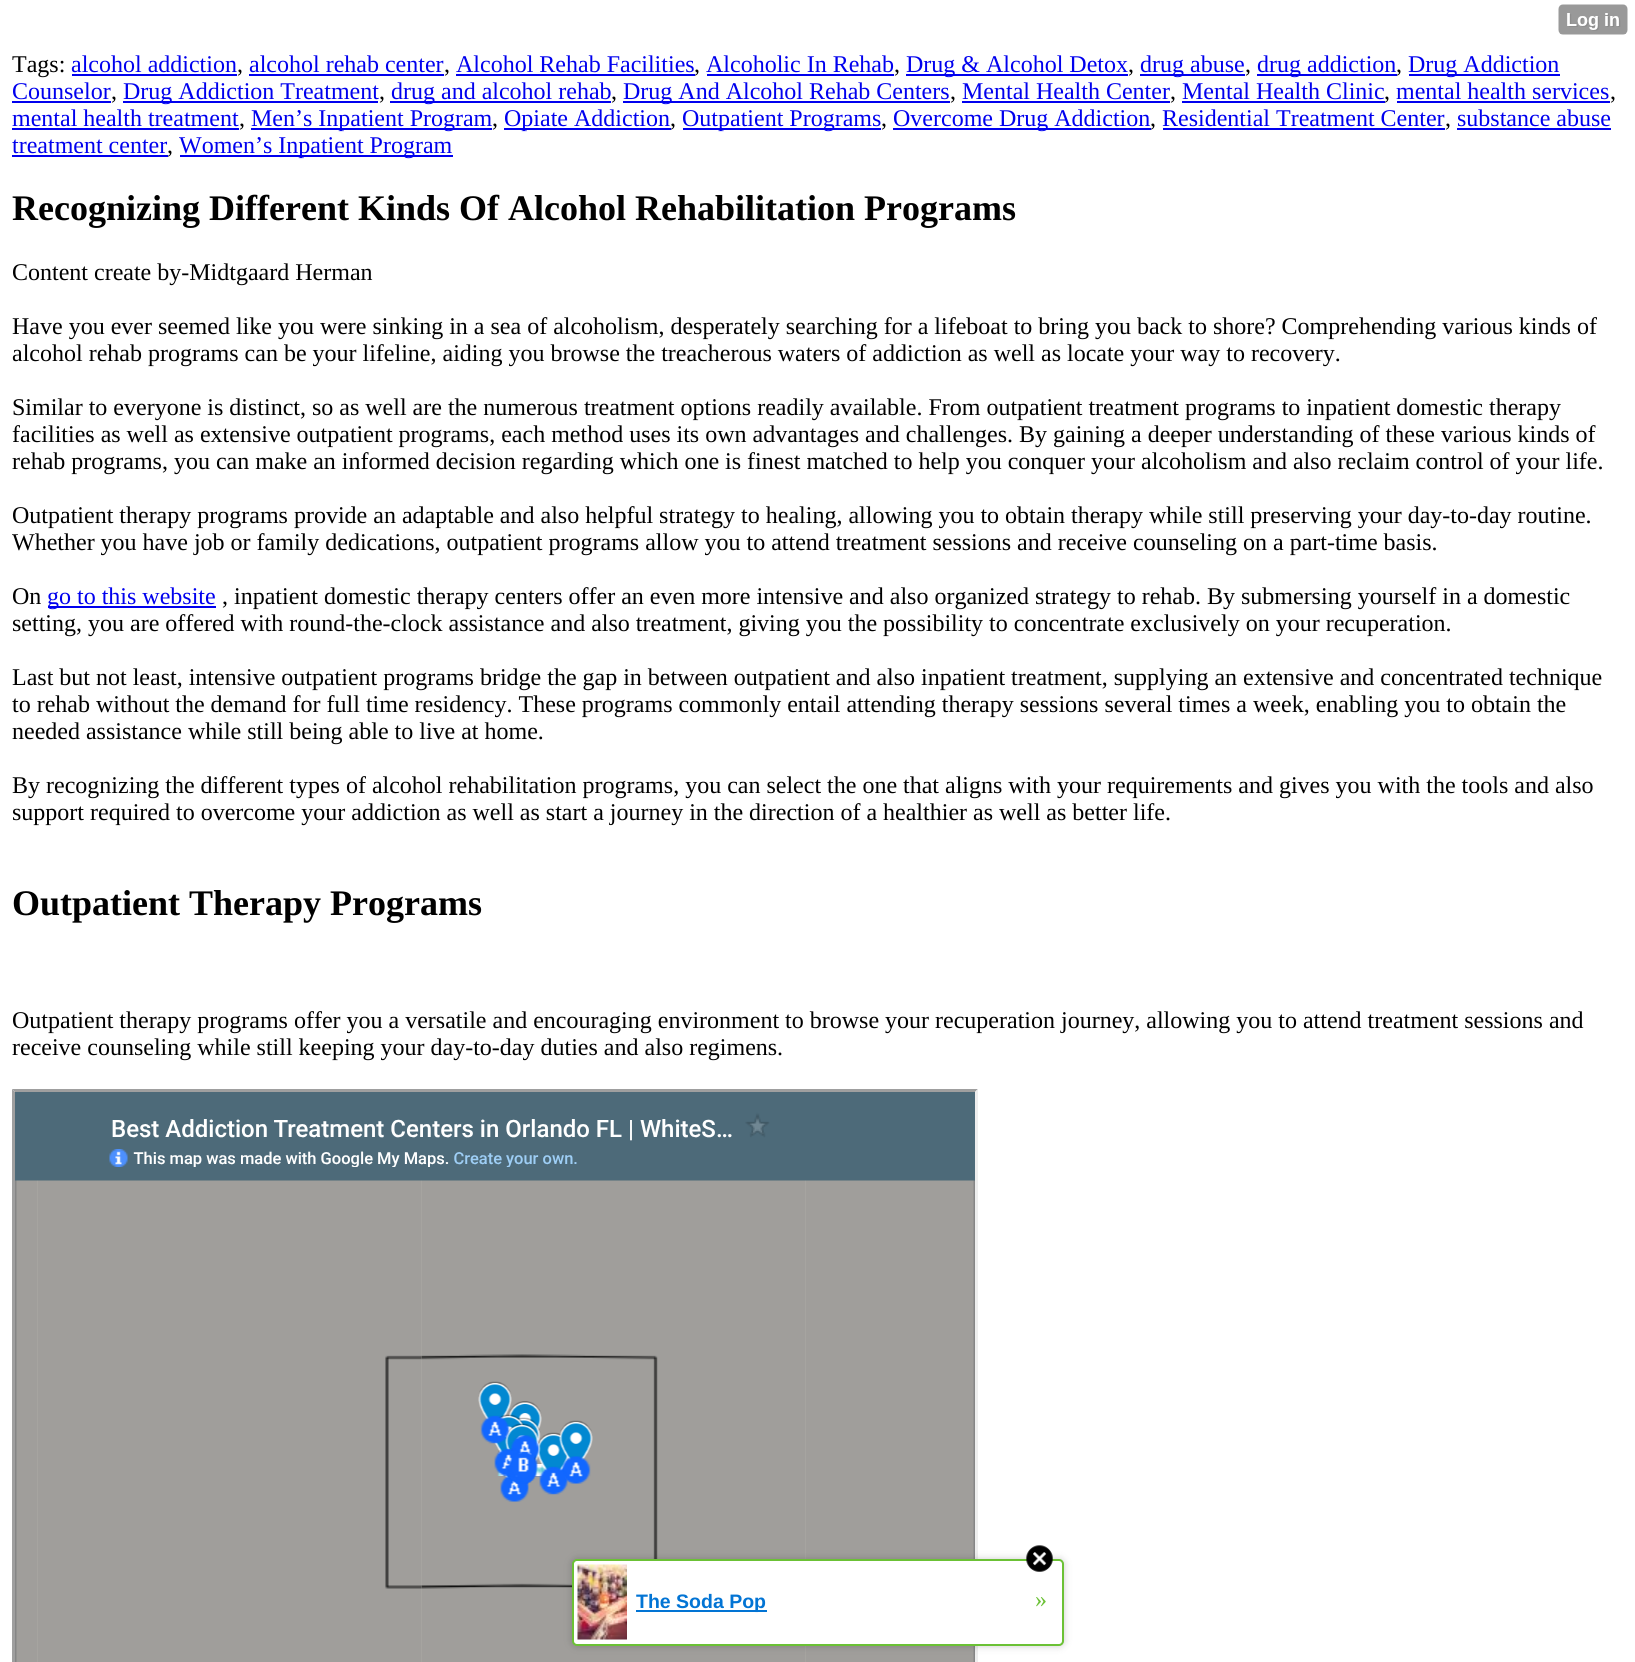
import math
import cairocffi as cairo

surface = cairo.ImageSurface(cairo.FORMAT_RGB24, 1635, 1662)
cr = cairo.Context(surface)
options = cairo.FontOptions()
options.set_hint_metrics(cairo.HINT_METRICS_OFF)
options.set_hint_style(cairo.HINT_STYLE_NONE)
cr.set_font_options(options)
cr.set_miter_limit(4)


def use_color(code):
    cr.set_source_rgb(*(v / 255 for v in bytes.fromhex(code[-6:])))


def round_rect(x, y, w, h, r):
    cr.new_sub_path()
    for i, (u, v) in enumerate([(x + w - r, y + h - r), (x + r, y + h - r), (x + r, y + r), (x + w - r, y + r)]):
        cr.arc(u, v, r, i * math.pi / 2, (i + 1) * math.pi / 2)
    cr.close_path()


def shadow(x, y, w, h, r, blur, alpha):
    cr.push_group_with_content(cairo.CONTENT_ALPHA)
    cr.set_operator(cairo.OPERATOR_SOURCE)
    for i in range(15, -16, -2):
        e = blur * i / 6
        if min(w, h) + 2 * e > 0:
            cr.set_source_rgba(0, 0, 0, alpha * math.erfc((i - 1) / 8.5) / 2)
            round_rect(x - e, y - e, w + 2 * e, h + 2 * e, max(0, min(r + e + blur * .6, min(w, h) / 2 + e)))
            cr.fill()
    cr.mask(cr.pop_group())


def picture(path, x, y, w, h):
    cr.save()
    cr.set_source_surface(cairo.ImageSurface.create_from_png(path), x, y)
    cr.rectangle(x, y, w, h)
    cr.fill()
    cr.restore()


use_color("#ffffff")
cr.paint()
picture("img1.png", 1558, 4, 70, 31)
cr.select_font_face("Liberation Serif")
cr.set_font_size(24)
use_color("#000000")
cr.move_to(12, 72)
cr.show_text("Tags:")
use_color("#0000ee")
cr.move_to(71, 72)
cr.show_text("alcohol addiction")
cr.rectangle(72, 74, 165, 2)
cr.fill()
use_color("#000000")
cr.move_to(237, 72)
cr.show_text(",")
use_color("#0000ee")
cr.move_to(249, 72)
cr.show_text("alcohol rehab center")
cr.rectangle(249, 74, 195, 2)
cr.fill()
use_color("#000000")
cr.move_to(444, 72)
cr.show_text(",")
use_color("#0000ee")
cr.move_to(456, 72)
cr.show_text("Alcohol Rehab Facilities")
cr.rectangle(456, 74, 239, 2)
cr.fill()
use_color("#000000")
cr.move_to(694, 72)
cr.show_text(",")
use_color("#0000ee")
cr.move_to(706, 72)
cr.show_text("Alcoholic In Rehab")
cr.rectangle(707, 74, 187, 2)
cr.fill()
use_color("#000000")
cr.move_to(894, 72)
cr.show_text(",")
use_color("#0000ee")
cr.rectangle(906, 74, 222, 2)
cr.fill()
cr.move_to(906, 72)
cr.show_text("Drug & Alcohol Detox")
use_color("#000000")
cr.move_to(1128, 72)
cr.show_text(",")
use_color("#0000ee")
cr.rectangle(1140, 74, 105, 2)
cr.fill()
cr.move_to(1140, 72)
cr.show_text("drug abuse")
use_color("#000000")
cr.move_to(1245, 72)
cr.show_text(",")
use_color("#0000ee")
cr.rectangle(1257, 74, 140, 2)
cr.fill()
cr.move_to(1257, 72)
cr.show_text("drug addiction")
use_color("#000000")
cr.move_to(1396, 72)
cr.show_text(",")
use_color("#0000ee")
cr.rectangle(1409, 74, 151, 2)
cr.fill()
cr.move_to(1408, 72)
cr.show_text("Drug Addiction")
cr.move_to(12, 99)
cr.show_text("Counselor")
cr.rectangle(12, 101, 99, 2)
cr.fill()
use_color("#000000")
cr.move_to(111, 99)
cr.show_text(",")
use_color("#0000ee")
cr.rectangle(123, 101, 255, 2)
cr.fill()
cr.move_to(123, 99)
cr.show_text("Drug Addiction Treatment")
use_color("#000000")
cr.move_to(379, 99)
cr.show_text(",")
use_color("#0000ee")
cr.rectangle(390, 101, 221, 2)
cr.fill()
cr.move_to(391, 99)
cr.show_text("drug and alcohol rehab")
use_color("#000000")
cr.move_to(611, 99)
cr.show_text(",")
use_color("#0000ee")
cr.rectangle(623, 101, 327, 2)
cr.fill()
cr.move_to(623, 99)
cr.show_text("Drug And Alcohol Rehab Centers")
use_color("#000000")
cr.move_to(950, 99)
cr.show_text(",")
use_color("#0000ee")
cr.move_to(962, 99)
cr.show_text("Mental Health Center")
cr.rectangle(962, 101, 208, 2)
cr.fill()
use_color("#000000")
cr.move_to(1170, 99)
cr.show_text(",")
use_color("#0000ee")
cr.move_to(1182, 99)
cr.show_text("Mental Health Clinic")
cr.rectangle(1182, 101, 203, 2)
cr.fill()
use_color("#000000")
cr.move_to(1384, 99)
cr.show_text(",")
use_color("#0000ee")
cr.move_to(1396, 99)
cr.show_text("mental health services")
cr.rectangle(1397, 101, 213, 2)
cr.fill()
use_color("#000000")
cr.move_to(1610, 99)
cr.show_text(",")
use_color("#0000ee")
cr.move_to(12, 126)
cr.show_text("mental health treatment")
cr.rectangle(12, 128, 227, 2)
cr.fill()
use_color("#000000")
cr.move_to(239, 126)
cr.show_text(",")
use_color("#0000ee")
cr.rectangle(251, 128, 241, 2)
cr.fill()
cr.move_to(251, 126)
cr.show_text("Men’s Inpatient Program")
use_color("#000000")
cr.move_to(492, 126)
cr.show_text(",")
use_color("#0000ee")
cr.rectangle(504, 128, 167, 2)
cr.fill()
cr.move_to(504, 126)
cr.show_text("Opiate Addiction")
use_color("#000000")
cr.move_to(670, 126)
cr.show_text(",")
use_color("#0000ee")
cr.rectangle(683, 128, 198, 2)
cr.fill()
cr.move_to(682, 126)
cr.show_text("Outpatient Programs")
use_color("#000000")
cr.move_to(881, 126)
cr.show_text(",")
use_color("#0000ee")
cr.rectangle(893, 128, 258, 2)
cr.fill()
cr.move_to(893, 126)
cr.show_text("Overcome Drug Addiction")
use_color("#000000")
cr.move_to(1150, 126)
cr.show_text(",")
use_color("#0000ee")
cr.move_to(1162, 126)
cr.show_text("Residential Treatment Center")
cr.rectangle(1163, 128, 282, 2)
cr.fill()
use_color("#000000")
cr.move_to(1445, 126)
cr.show_text(",")
use_color("#0000ee")
cr.move_to(1457, 126)
cr.show_text("substance abuse")
cr.rectangle(1457, 128, 154, 2)
cr.fill()
cr.move_to(12, 153)
cr.show_text("treatment center")
cr.rectangle(12, 155, 156, 2)
cr.fill()
use_color("#000000")
cr.move_to(167, 153)
cr.show_text(",")
use_color("#0000ee")
cr.rectangle(180, 155, 273, 2)
cr.fill()
cr.move_to(179, 153)
cr.show_text("Women’s Inpatient Program")
cr.select_font_face("Liberation Serif", cairo.FONT_SLANT_NORMAL, cairo.FONT_WEIGHT_BOLD)
cr.set_font_size(36)
use_color("#000000")
cr.move_to(12, 220)
cr.show_text("Recognizing Different Kinds Of Alcohol Rehabilitation Programs")
cr.select_font_face("Liberation Serif")
cr.set_font_size(24)
cr.move_to(12, 280)
cr.show_text("Content create by-Midtgaard Herman")
cr.move_to(12, 334)
cr.show_text("Have you ever seemed like you were sinking in a sea of alcoholism, desperately searching for a lifeboat to bring you back to shore? Comprehending various kinds of")
cr.move_to(12, 361)
cr.show_text("alcohol rehab programs can be your lifeline, aiding you browse the treacherous waters of addiction as well as locate your way to recovery.")
cr.move_to(12, 415)
cr.show_text("Similar to everyone is distinct, so as well are the numerous treatment options readily available. From outpatient treatment programs to inpatient domestic therapy")
cr.move_to(12, 442)
cr.show_text("facilities as well as extensive outpatient programs, each method uses its own advantages and challenges. By gaining a deeper understanding of these various kinds of")
cr.move_to(12, 469)
cr.show_text("rehab programs, you can make an informed decision regarding which one is finest matched to help you conquer your alcoholism and also reclaim control of your life.")
cr.move_to(12, 523)
cr.show_text("Outpatient therapy programs provide an adaptable and also helpful strategy to healing, allowing you to obtain therapy while still preserving your day-to-day routine.")
cr.move_to(12, 550)
cr.show_text("Whether you have job or family dedications, outpatient programs allow you to attend treatment sessions and receive counseling on a part-time basis.")
cr.move_to(12, 604)
cr.show_text("On")
use_color("#0000ee")
cr.rectangle(48, 606, 168, 2)
cr.fill()
cr.move_to(47, 604)
cr.show_text("go to this website")
use_color("#000000")
cr.move_to(222, 604)
cr.show_text(", inpatient domestic therapy centers offer an even more intensive and also organized strategy to rehab. By submersing yourself in a domestic")
cr.move_to(12, 631)
cr.show_text("setting, you are offered with round-the-clock assistance and also treatment, giving you the possibility to concentrate exclusively on your recuperation.")
cr.move_to(12, 685)
cr.show_text("Last but not least, intensive outpatient programs bridge the gap in between outpatient and also inpatient treatment, supplying an extensive and concentrated technique")
cr.move_to(12, 712)
cr.show_text("to rehab without the demand for full time residency. These programs commonly entail attending therapy sessions several times a week, enabling you to obtain the")
cr.move_to(12, 739)
cr.show_text("needed assistance while still being able to live at home.")
cr.move_to(12, 793)
cr.show_text("By recognizing the different types of alcohol rehabilitation programs, you can select the one that aligns with your requirements and gives you with the tools and also")
cr.move_to(12, 820)
cr.show_text("support required to overcome your addiction as well as start a journey in the direction of a healthier as well as better life.")
cr.select_font_face("Liberation Serif", cairo.FONT_SLANT_NORMAL, cairo.FONT_WEIGHT_BOLD)
cr.set_font_size(36)
cr.move_to(12, 915)
cr.show_text("Outpatient Therapy Programs")
cr.select_font_face("Liberation Serif")
cr.set_font_size(24)
cr.move_to(12, 1028)
cr.show_text("Outpatient therapy programs offer you a versatile and encouraging environment to browse your recuperation journey, allowing you to attend treatment sessions and")
cr.move_to(12, 1055)
cr.show_text("receive counseling while still keeping your day-to-day duties and also regimens.")
use_color("#9f9f9f")
cr.new_path()
cr.move_to(12, 1089)
cr.line_to(978, 1089)
cr.line_to(975, 1092)
cr.line_to(15, 1092)
cr.close_path()
cr.fill()
cr.new_path()
cr.move_to(12, 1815)
cr.line_to(12, 1089)
cr.line_to(15, 1092)
cr.line_to(15, 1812)
cr.close_path()
cr.fill()
picture("img2.png", 15, 1092, 960, 570)
use_color("#eeeeee")
cr.new_path()
cr.move_to(978, 1089)
cr.line_to(978, 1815)
cr.line_to(975, 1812)
cr.line_to(975, 1092)
cr.close_path()
cr.fill()
use_color("#000000")
shadow(572, 1559, 492, 87, 5, 4, 0.2)
use_color("#ffffff")
round_rect(573, 1560, 490, 85, 4)
cr.fill_preserve()
use_color("#6bc135")
cr.stroke()
picture("img3.png", 1026, 1545, 27, 27)
picture("img4.png", 577, 1564, 50, 76)
use_color("#0274d4")
cr.rectangle(636, 1610, 131, 2)
cr.fill()
cr.select_font_face("Liberation Sans", cairo.FONT_SLANT_NORMAL, cairo.FONT_WEIGHT_BOLD)
cr.set_font_size(19.5)
cr.move_to(636, 1608)
cr.show_text("The Soda Pop")
cr.select_font_face("Liberation Serif")
cr.set_font_size(24)
use_color("#6bc135")
cr.move_to(1035, 1607)
cr.show_text("»")
surface.write_to_png("result.png")
